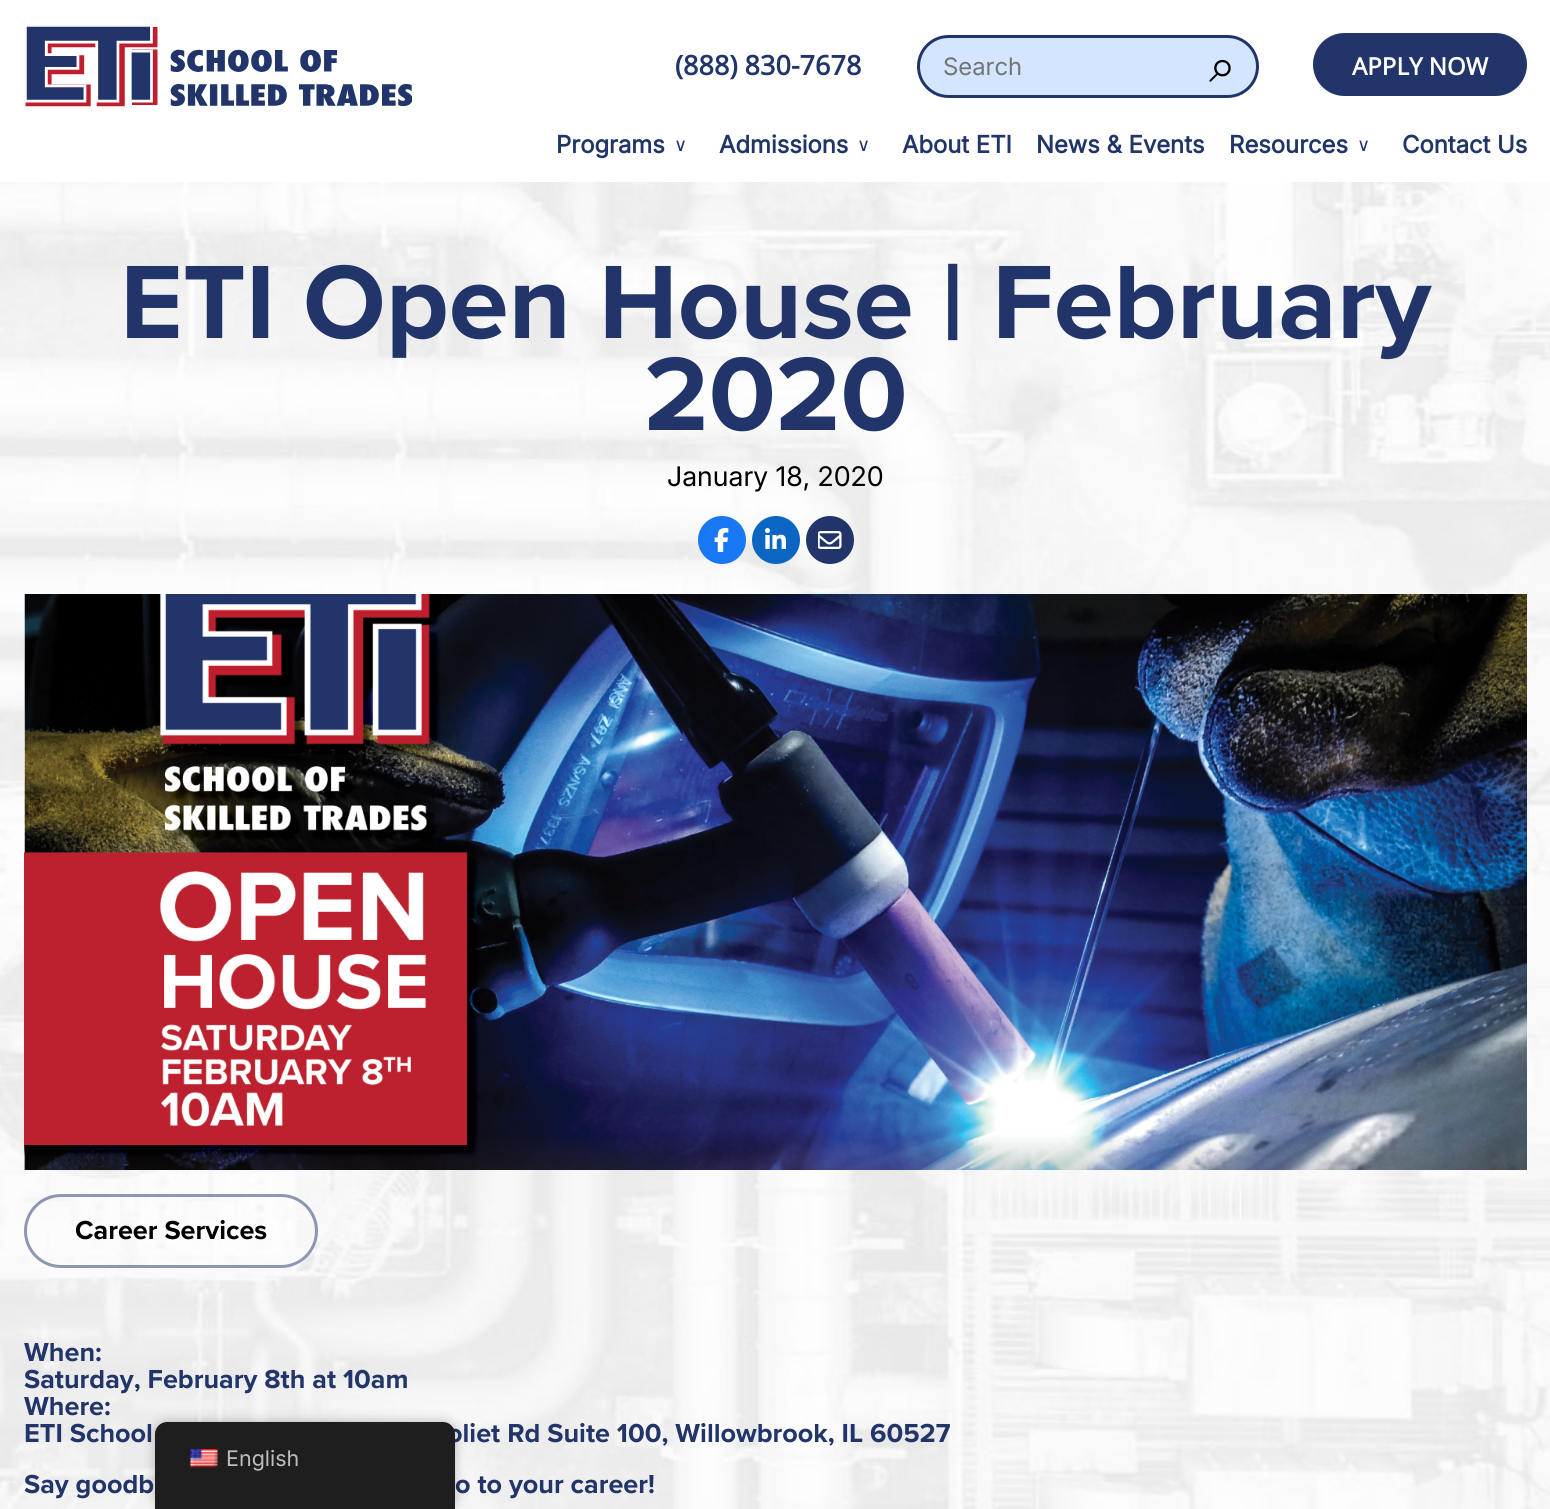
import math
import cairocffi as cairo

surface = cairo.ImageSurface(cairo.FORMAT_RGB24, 1550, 1509)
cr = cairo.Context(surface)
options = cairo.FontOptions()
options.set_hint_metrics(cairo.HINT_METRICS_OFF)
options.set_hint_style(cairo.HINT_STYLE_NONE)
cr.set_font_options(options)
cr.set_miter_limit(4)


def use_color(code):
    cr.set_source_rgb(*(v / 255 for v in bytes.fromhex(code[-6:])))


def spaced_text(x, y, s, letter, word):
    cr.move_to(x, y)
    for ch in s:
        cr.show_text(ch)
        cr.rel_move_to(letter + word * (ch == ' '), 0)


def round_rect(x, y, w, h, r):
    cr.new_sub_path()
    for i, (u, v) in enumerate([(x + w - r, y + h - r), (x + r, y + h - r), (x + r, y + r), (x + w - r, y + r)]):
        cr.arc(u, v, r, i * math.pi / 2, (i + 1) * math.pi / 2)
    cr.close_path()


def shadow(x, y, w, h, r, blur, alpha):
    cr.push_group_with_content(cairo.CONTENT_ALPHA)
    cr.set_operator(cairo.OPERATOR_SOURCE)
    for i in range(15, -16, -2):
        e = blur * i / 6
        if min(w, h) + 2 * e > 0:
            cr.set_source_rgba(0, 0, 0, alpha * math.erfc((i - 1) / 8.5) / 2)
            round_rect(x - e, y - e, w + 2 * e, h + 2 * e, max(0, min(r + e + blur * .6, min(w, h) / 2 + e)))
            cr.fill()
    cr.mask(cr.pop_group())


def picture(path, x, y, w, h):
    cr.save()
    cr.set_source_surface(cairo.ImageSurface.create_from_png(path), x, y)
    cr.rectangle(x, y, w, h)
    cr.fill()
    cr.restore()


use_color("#ffffff")
cr.paint()
picture("img1.png", 25, 26, 388, 81)
cr.select_font_face("Noto Sans", cairo.FONT_SLANT_NORMAL, cairo.FONT_WEIGHT_BOLD)
cr.set_font_size(27)
use_color("#21356a")
cr.move_to(675, 75)
cr.show_text("(888) 830-7678")
use_color("#d4e6ff")
round_rect(918.5, 36.5, 339, 60, 30)
cr.fill_preserve()
use_color("#21356a")
cr.set_line_width(3)
cr.stroke()
cr.select_font_face("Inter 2")
cr.set_font_size(24)
use_color("#757575")
cr.move_to(943, 75)
cr.show_text("Search")
cr.select_font_face("FreeSerif")
cr.set_font_size(48)
use_color("#000000")
cr.move_to(1209, 82)
cr.show_text("⌕")
use_color("#21356a")
round_rect(1314.5, 34.5, 211, 60, 30)
cr.fill_preserve()
cr.stroke()
cr.select_font_face("Noto Sans", cairo.FONT_SLANT_NORMAL, cairo.FONT_WEIGHT_BOLD)
cr.set_font_size(24)
use_color("#ffffff")
cr.move_to(1352, 75)
cr.show_text("APPLY NOW")
cr.select_font_face("Inter", cairo.FONT_SLANT_NORMAL, cairo.FONT_WEIGHT_BOLD)
use_color("#21356a")
cr.move_to(556, 153)
cr.show_text("Programs")
cr.select_font_face("DejaVu Sans")
cr.set_font_size(18)
spaced_text(674, 151, "∨", 9, 0)
cr.select_font_face("Inter", cairo.FONT_SLANT_NORMAL, cairo.FONT_WEIGHT_BOLD)
cr.set_font_size(24)
cr.move_to(719, 153)
cr.show_text("Admissions")
cr.select_font_face("DejaVu Sans")
cr.set_font_size(18)
spaced_text(857, 151, "∨", 9, 0)
cr.select_font_face("Inter", cairo.FONT_SLANT_NORMAL, cairo.FONT_WEIGHT_BOLD)
cr.set_font_size(24)
cr.move_to(902, 153)
cr.show_text("About ETI")
cr.move_to(1036, 153)
cr.show_text("News & Events")
cr.move_to(1229, 153)
cr.show_text("Resources")
cr.select_font_face("DejaVu Sans")
cr.set_font_size(18)
spaced_text(1357, 151, "∨", 9, 0)
cr.select_font_face("Inter", cairo.FONT_SLANT_NORMAL, cairo.FONT_WEIGHT_BOLD)
cr.set_font_size(24)
cr.move_to(1402, 153)
cr.show_text("Contact Us")
picture("img2.png", 0, 182, 1550, 1327)
cr.select_font_face("Proxima Nova", cairo.FONT_SLANT_NORMAL, cairo.FONT_WEIGHT_BOLD)
cr.set_font_size(108)
cr.move_to(120, 338)
cr.show_text("ETI Open House | February")
cr.move_to(644, 430)
cr.show_text("2020")
cr.select_font_face("Inter")
cr.set_font_size(27)
use_color("#000000")
cr.move_to(667, 486)
cr.show_text("January 18, 2020")
use_color("#1877f2")
cr.new_path()
cr.arc(722, 540, 24, 0, 2 * math.pi)
cr.fill()
picture("img3.png", 714, 528, 15, 24)
use_color("#0a66c2")
cr.arc(776, 540, 24, 0, 2 * math.pi)
cr.fill()
picture("img4.png", 765, 528, 21, 21)
use_color("#21356a")
cr.arc(830, 540, 24, 0, 2 * math.pi)
cr.fill()
picture("img5.png", 818, 531, 24, 18)
picture("img6.png", 24, 594, 1503, 576)
round_rect(25.5, 1195.5, 291, 71, 35.5)
cr.set_source_rgba(0.129, 0.208, 0.416, 0.5)
cr.stroke()
cr.select_font_face("Proxima Nova", cairo.FONT_SLANT_NORMAL, cairo.FONT_WEIGHT_BOLD)
use_color("#000000")
cr.move_to(75, 1239)
cr.show_text("Career Services")
use_color("#21356a")
cr.move_to(24, 1361)
cr.show_text("When:")
cr.move_to(24, 1388)
cr.show_text("Saturday, February 8th at 10am")
cr.move_to(24, 1415)
cr.show_text("Where:")
cr.move_to(24, 1442)
cr.show_text("ETI School")
cr.move_to(447, 1442)
cr.show_text("oliet Rd Suite 100, Willowbrook, IL 60527")
cr.move_to(24, 1493)
cr.show_text("Say goodb")
cr.move_to(455, 1493)
cr.show_text("o to your career!")
use_color("#000000")
shadow(155, 1422, 300, 87, 12, 6, 0.25)
use_color("#1e1e1e")
cr.new_path()
cr.move_to(167, 1422)
cr.line_to(443, 1422)
cr.curve_to(449.5, 1422, 455, 1427.5, 455, 1434)
cr.line_to(455, 1509)
cr.line_to(155, 1509)
cr.line_to(155, 1434)
cr.curve_to(155, 1427.5, 160.5, 1422, 167, 1422)
cr.close_path()
cr.fill()
picture("img7.png", 190, 1449, 28, 19)
cr.select_font_face("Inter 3")
cr.set_font_size(21.5)
use_color("#bdbdbd")
cr.move_to(226, 1466)
cr.show_text("English")
surface.write_to_png("result.png")
